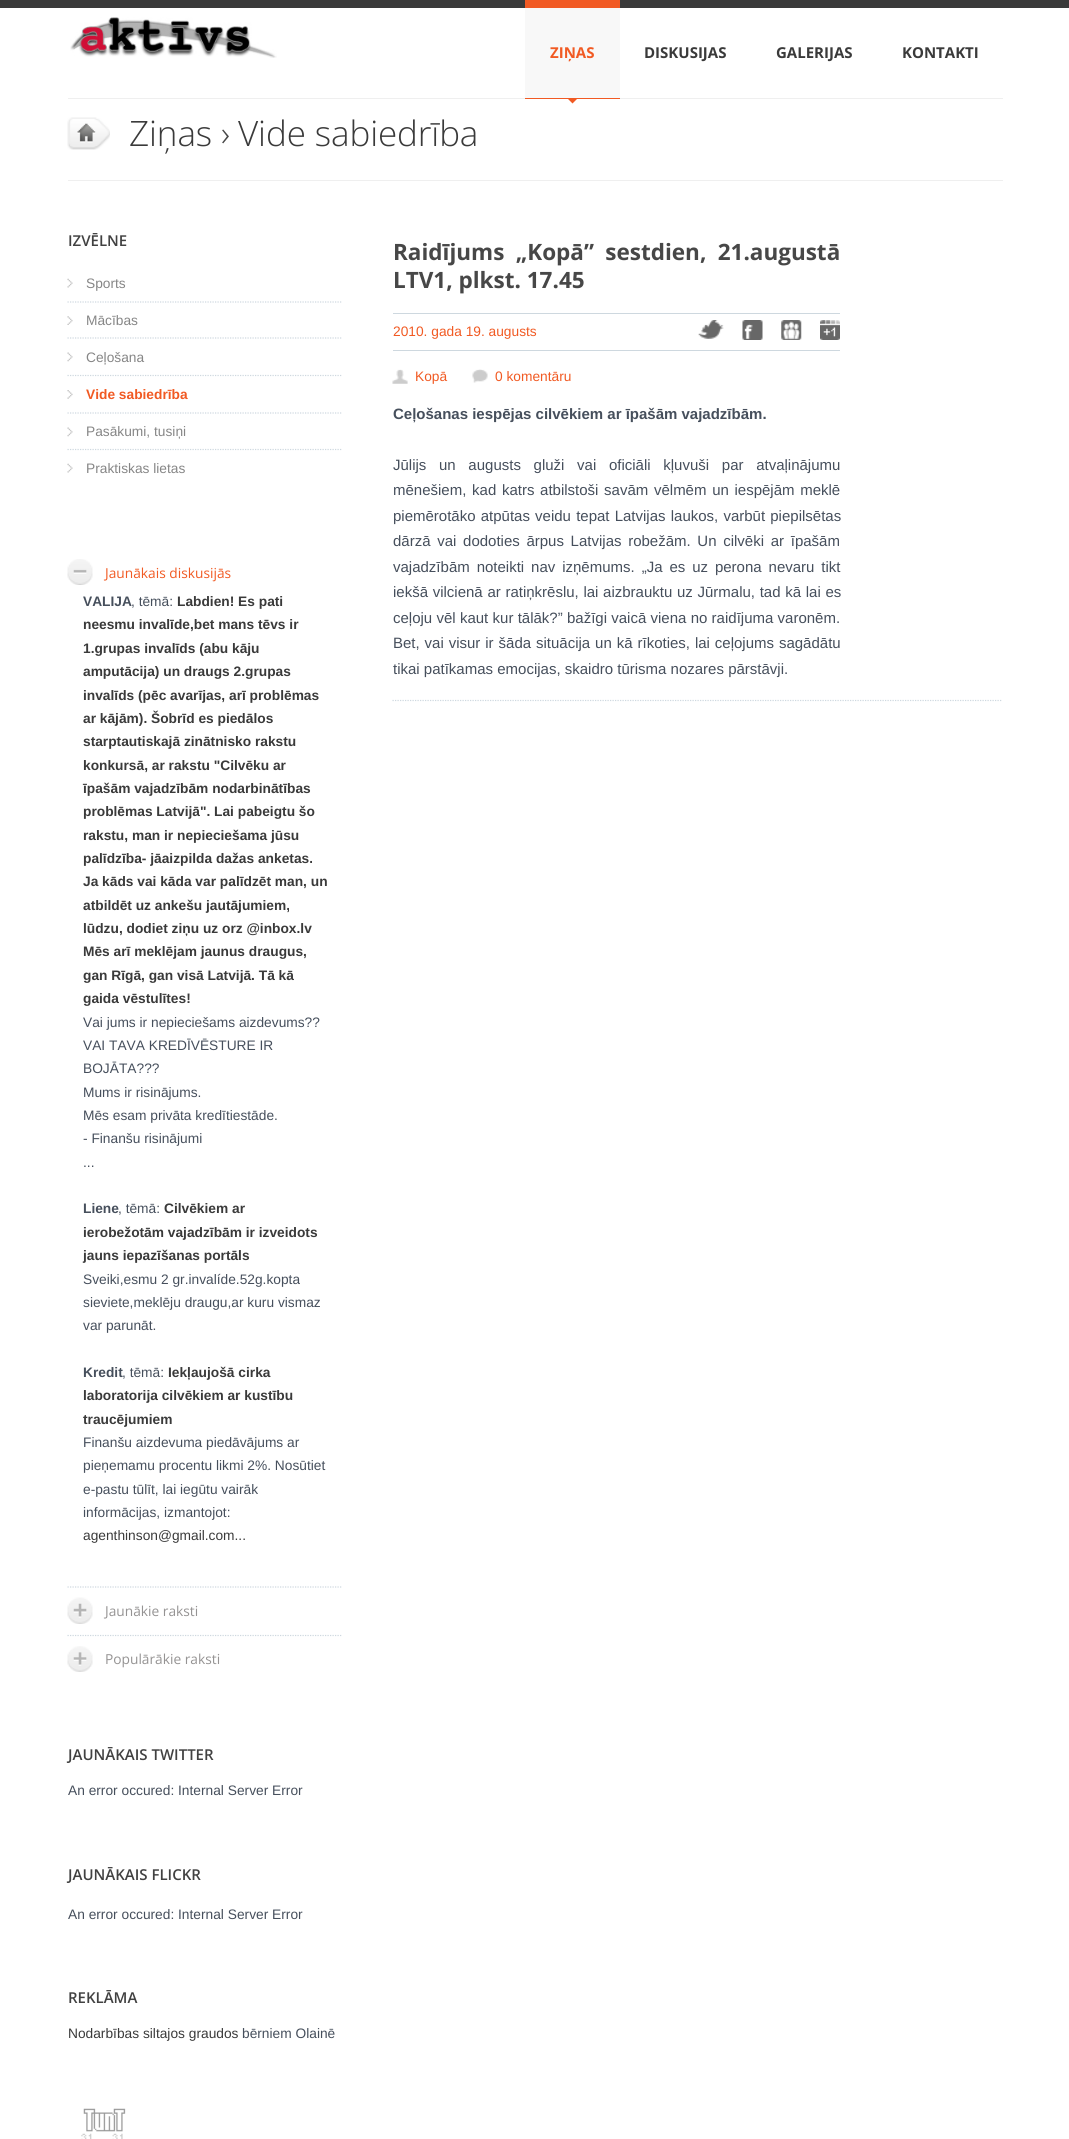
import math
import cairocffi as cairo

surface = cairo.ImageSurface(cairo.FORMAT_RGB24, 1069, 2139)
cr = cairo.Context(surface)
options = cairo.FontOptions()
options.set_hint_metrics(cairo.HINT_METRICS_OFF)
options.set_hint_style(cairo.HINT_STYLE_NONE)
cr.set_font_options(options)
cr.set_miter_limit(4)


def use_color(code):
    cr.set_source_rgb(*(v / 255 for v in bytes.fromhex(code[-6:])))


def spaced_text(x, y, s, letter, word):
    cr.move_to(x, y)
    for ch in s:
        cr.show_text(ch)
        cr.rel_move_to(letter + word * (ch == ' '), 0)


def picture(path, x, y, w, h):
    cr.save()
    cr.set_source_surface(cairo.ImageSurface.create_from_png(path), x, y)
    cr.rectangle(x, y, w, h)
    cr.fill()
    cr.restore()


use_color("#ffffff")
cr.paint()
use_color("#3a3a3a")
cr.rectangle(0, 0, 1069, 8)
cr.fill()
use_color("#efefef")
cr.rectangle(68, 98, 935, 1)
cr.fill()
picture("img1.png", 70, 17, 207, 41)
use_color("#f15a23")
cr.new_path()
cr.move_to(572.5, 95)
cr.line_to(577, 99)
cr.line_to(572.5, 103.5)
cr.line_to(568, 99)
cr.close_path()
cr.fill()
use_color("#f8f8f8")
cr.rectangle(525, 8, 95, 90)
cr.fill()
use_color("#f15a23")
cr.rectangle(525, 0, 95, 8)
cr.fill()
cr.rectangle(525, 98, 95, 1)
cr.fill()
cr.select_font_face("Open Sans", cairo.FONT_SLANT_NORMAL, cairo.FONT_WEIGHT_BOLD)
cr.set_font_size(15)
cr.move_to(550, 58)
cr.show_text("ZIŅAS")
use_color("#3a3a3a")
cr.move_to(644, 58)
cr.show_text("DISKUSIJAS")
cr.move_to(776, 58)
cr.show_text("GALERIJAS")
cr.move_to(902, 58)
cr.show_text("KONTAKTI")
use_color("#efefef")
cr.rectangle(68, 180, 935, 1)
cr.fill()
picture("img2.png", 67, 117, 43, 33)
cr.select_font_face("Open Sans Light")
cr.set_font_size(35)
use_color("#3a3a3a")
spaced_text(129, 146, "Ziņas", -0.1, 0)
use_color("#474747")
spaced_text(221, 146, "›", -0.1, 0)
use_color("#3a3a3a")
spaced_text(238, 146, "Vide sabiedrība", -0.1, 0)
cr.select_font_face("Open Sans SemiBold")
cr.set_font_size(15)
use_color("#414141")
cr.move_to(68, 246)
cr.show_text("IZVĒLNE")
picture("img3.png", 67, 278, 6, 10)
cr.new_path()
cr.move_to(67.5, 302)
cr.line_to(342.5, 302)
use_color("#ced8df")
cr.set_line_width(1.2)
cr.set_dash([1.25, 1.25])
cr.stroke()
cr.select_font_face("Liberation Sans")
cr.set_font_size(13.75)
use_color("#868686")
cr.move_to(86, 288)
cr.show_text("Sports")
picture("img4.png", 67, 316, 6, 9)
cr.new_path()
cr.move_to(67.5, 338)
cr.line_to(342.5, 338)
use_color("#ced8df")
cr.stroke()
use_color("#868686")
cr.move_to(86, 325)
cr.show_text("Mācības")
picture("img5.png", 67, 352, 6, 10)
cr.new_path()
cr.move_to(67.5, 375.5)
cr.line_to(342.5, 375.5)
use_color("#ced8df")
cr.stroke()
use_color("#868686")
cr.move_to(86, 362)
cr.show_text("Ceļošana")
picture("img6.png", 67, 390, 6, 9)
cr.new_path()
cr.move_to(67.5, 413)
cr.line_to(342.5, 413)
use_color("#ced8df")
cr.stroke()
cr.select_font_face("Liberation Sans", cairo.FONT_SLANT_NORMAL, cairo.FONT_WEIGHT_BOLD)
use_color("#f15a23")
cr.move_to(86, 399)
cr.show_text("Vide sabiedrība")
picture("img5.png", 67, 427, 6, 10)
cr.new_path()
cr.move_to(67.5, 449.5)
cr.line_to(342.5, 449.5)
use_color("#ced8df")
cr.stroke()
cr.select_font_face("Liberation Sans")
use_color("#868686")
cr.move_to(86, 436)
cr.show_text("Pasākumi, tusiņi")
picture("img3.png", 67, 463, 6, 10)
cr.move_to(86, 473)
cr.show_text("Praktiskas lietas")
picture("img7.png", 67, 559, 26, 26)
cr.select_font_face("Open Sans")
use_color("#f15a23")
cr.move_to(105, 578)
cr.show_text("Jaunākais diskusijās")
cr.select_font_face("Liberation Sans", cairo.FONT_SLANT_NORMAL, cairo.FONT_WEIGHT_BOLD)
use_color("#464f5c")
cr.move_to(83, 606)
cr.show_text("VALIJA")
cr.select_font_face("Liberation Sans")
cr.move_to(131, 606)
cr.show_text(", tēmā:")
cr.select_font_face("Liberation Sans", cairo.FONT_SLANT_NORMAL, cairo.FONT_WEIGHT_BOLD)
use_color("#3a3a3a")
cr.move_to(177, 606)
cr.show_text("Labdien! Es pati")
cr.move_to(83, 629)
cr.show_text("neesmu invalīde,bet mans tēvs ir")
cr.move_to(83, 653)
cr.show_text("1.grupas invalīds (abu kāju")
cr.move_to(83, 676)
cr.show_text("amputācija) un draugs 2.grupas")
cr.move_to(83, 700)
cr.show_text("invalīds (pēc avarījas, arī problēmas")
cr.move_to(83, 723)
cr.show_text("ar kājām). Šobrīd es piedālos")
cr.move_to(83, 746)
cr.show_text("starptautiskajā zinātnisko rakstu")
cr.move_to(83, 770)
cr.show_text("konkursā, ar rakstu \"Cilvēku ar")
cr.move_to(83, 793)
cr.show_text("īpašām vajadzībām nodarbinātības")
cr.move_to(83, 816)
cr.show_text("problēmas Latvijā\". Lai pabeigtu šo")
cr.move_to(83, 840)
cr.show_text("rakstu, man ir nepieciešama jūsu")
cr.move_to(83, 863)
cr.show_text("palīdzība- jāaizpilda dažas anketas.")
cr.move_to(83, 886)
cr.show_text("Ja kāds vai kāda var palīdzēt man, un")
cr.move_to(83, 910)
cr.show_text("atbildēt uz ankešu jautājumiem,")
cr.move_to(83, 933)
cr.show_text("lūdzu, dodiet ziņu uz orz @inbox.lv")
cr.move_to(83, 956)
cr.show_text("Mēs arī meklējam jaunus draugus,")
cr.move_to(83, 980)
cr.show_text("gan Rīgā, gan visā Latvijā. Tā kā")
cr.move_to(83, 1003)
cr.show_text("gaida vēstulītes!")
cr.select_font_face("Liberation Sans")
use_color("#464f5c")
cr.move_to(83, 1027)
cr.show_text("Vai jums ir nepieciešams aizdevums??")
cr.move_to(83, 1050)
cr.show_text("VAI TAVA KREDĪVĒSTURE IR")
cr.move_to(83, 1073)
cr.show_text("BOJĀTA???")
cr.move_to(83, 1097)
cr.show_text("Mums ir risinājums.")
cr.move_to(83, 1120)
cr.show_text("Mēs esam privāta kredītiestāde.")
cr.move_to(83, 1143)
cr.show_text("- Finanšu risinājumi")
cr.move_to(83, 1167)
cr.show_text("...")
cr.select_font_face("Liberation Sans", cairo.FONT_SLANT_NORMAL, cairo.FONT_WEIGHT_BOLD)
cr.move_to(83, 1213)
cr.show_text("Liene")
cr.select_font_face("Liberation Sans")
cr.move_to(118, 1213)
cr.show_text(", tēmā:")
cr.select_font_face("Liberation Sans", cairo.FONT_SLANT_NORMAL, cairo.FONT_WEIGHT_BOLD)
use_color("#3a3a3a")
cr.move_to(164, 1213)
cr.show_text("Cilvēkiem ar")
cr.move_to(83, 1237)
cr.show_text("ierobežotām vajadzībām ir izveidots")
cr.move_to(83, 1260)
cr.show_text("jauns iepazīšanas portāls")
cr.select_font_face("Liberation Sans")
use_color("#464f5c")
cr.move_to(83, 1284)
cr.show_text("Sveiki,esmu 2 gr.invalíde.52g.kopta")
cr.move_to(83, 1307)
cr.show_text("sieviete,meklēju draugu,ar kuru vismaz")
cr.move_to(83, 1330)
cr.show_text("var parunāt.")
cr.select_font_face("Liberation Sans", cairo.FONT_SLANT_NORMAL, cairo.FONT_WEIGHT_BOLD)
cr.move_to(83, 1377)
cr.show_text("Kredit")
cr.select_font_face("Liberation Sans")
cr.move_to(122, 1377)
cr.show_text(", tēmā:")
cr.select_font_face("Liberation Sans", cairo.FONT_SLANT_NORMAL, cairo.FONT_WEIGHT_BOLD)
use_color("#3a3a3a")
cr.move_to(168, 1377)
cr.show_text("Iekļaujošā cirka")
cr.move_to(83, 1400)
cr.show_text("laboratorija cilvēkiem ar kustību")
cr.move_to(83, 1424)
cr.show_text("traucējumiem")
cr.select_font_face("Liberation Sans")
use_color("#464f5c")
cr.move_to(83, 1447)
cr.show_text("Finanšu aizdevuma piedāvājums ar")
cr.move_to(83, 1470)
cr.show_text("pieņemamu procentu likmi 2%. Nosūtiet")
cr.move_to(83, 1494)
cr.show_text("e-pastu tūlīt, lai iegūtu vairāk")
cr.move_to(83, 1517)
cr.show_text("informācijas, izmantojot:")
use_color("#3a3a3a")
cr.move_to(83, 1540)
cr.show_text("agenthinson@gmail.com...")
cr.new_path()
cr.move_to(67.5, 1587)
cr.line_to(342.5, 1587)
use_color("#ced8df")
cr.stroke()
picture("img8.png", 67, 1597, 26, 27)
cr.select_font_face("Open Sans")
use_color("#959393")
cr.move_to(105, 1616)
cr.show_text("Jaunākie raksti")
cr.new_path()
cr.move_to(67.5, 1635.5)
cr.line_to(342.5, 1635.5)
use_color("#ced8df")
cr.stroke()
picture("img9.png", 67, 1646, 26, 26)
use_color("#959393")
cr.move_to(105, 1664)
cr.show_text("Populārākie raksti")
cr.select_font_face("Open Sans SemiBold")
cr.set_font_size(15)
use_color("#414141")
cr.move_to(68, 1760)
cr.show_text("JAUNĀKAIS TWITTER")
cr.select_font_face("Liberation Sans")
cr.set_font_size(13.75)
use_color("#464f5c")
cr.move_to(68, 1795)
cr.show_text("An error occured: Internal Server Error")
cr.select_font_face("Open Sans SemiBold")
cr.set_font_size(15)
use_color("#414141")
cr.move_to(68, 1880)
cr.show_text("JAUNĀKAIS FLICKR")
cr.select_font_face("Liberation Sans")
cr.set_font_size(13.75)
use_color("#464f5c")
cr.move_to(68, 1919)
cr.show_text("An error occured: Internal Server Error")
cr.select_font_face("Open Sans SemiBold")
cr.set_font_size(15)
use_color("#414141")
cr.move_to(68, 2003)
cr.show_text("REKLĀMA")
cr.select_font_face("Liberation Sans")
cr.set_font_size(13.75)
use_color("#3a3a3a")
cr.move_to(68, 2038)
cr.show_text("Nodarbības siltajos graudos")
use_color("#464f5c")
cr.move_to(242, 2038)
cr.show_text("bērniem Olainē")
picture("img10.png", 81, 2108, 45, 31)
cr.new_path()
cr.move_to(392.5, 700.5)
cr.line_to(1002.5, 700.5)
use_color("#ced8df")
cr.stroke()
cr.select_font_face("Open Sans", cairo.FONT_SLANT_NORMAL, cairo.FONT_WEIGHT_BOLD)
cr.set_font_size(22.5)
use_color("#474747")
spaced_text(393, 260, "Raidījums „Kopā” sestdien, 21.augustā", 0, 5.5)
cr.move_to(393, 288)
cr.show_text("LTV1, plkst. 17.45")
use_color("#ced8df")
cr.rectangle(393, 313, 447, 1)
cr.fill()
cr.rectangle(393, 350, 447, 1)
cr.fill()
cr.select_font_face("Liberation Sans")
cr.set_font_size(13.75)
use_color("#f15a23")
cr.move_to(393, 336)
cr.show_text("2010. gada 19. augusts")
picture("img11.png", 698, 320, 26, 19)
picture("img12.png", 742, 320, 21, 20)
picture("img13.png", 781, 320, 21, 20)
picture("img14.png", 820, 320, 20, 20)
picture("img15.png", 392, 369, 16, 15)
cr.move_to(415, 381)
cr.show_text("Kopā")
picture("img16.png", 472, 369, 16, 14)
cr.move_to(495, 381)
cr.show_text("0 komentāru")
cr.select_font_face("Liberation Sans", cairo.FONT_SLANT_NORMAL, cairo.FONT_WEIGHT_BOLD)
cr.set_font_size(15)
use_color("#464f5c")
cr.move_to(393, 419)
cr.show_text("Ceļošanas iespējas cilvēkiem ar īpašām vajadzībām.")
cr.select_font_face("Liberation Sans")
spaced_text(393, 470, "Jūlijs un augusts gluži vai oficiāli kļuvuši par atvaļinājumu", 0, 8.5)
spaced_text(393, 495, "mēnešiem, kad katrs atbilstoši savām vēlmēm un iespējām meklē", 0, 1.5)
spaced_text(393, 521, "piemērotāko atpūtas veidu tepat Latvijas laukos, varbūt piepilsētas", 0, 1)
spaced_text(393, 546, "dārzā vai dodoties ārpus Latvijas robežām. Un cilvēki ar īpašām", 0, 2.5)
spaced_text(393, 572, "vajadzībām noteikti nav izņēmums. „Ja es uz perona nevaru tikt", 0, 2.75)
spaced_text(393, 597, "iekšā vilcienā ar ratiņkrēslu, lai aizbrauktu uz Jūrmalu, tad kā lai es", 0, 0.5)
spaced_text(393, 623, "ceļoju vēl kaut kur tālāk?” bažīgi vaicā viena no raidījuma varonēm.", 0, 0.1)
spaced_text(393, 648, "Bet, vai visur ir šāda situācija un kā rīkoties, lai ceļojums sagādātu", 0, 0.75)
cr.move_to(393, 674)
cr.show_text("tikai patīkamas emocijas, skaidro tūrisma nozares pārstāvji.")
surface.write_to_png("result.png")
